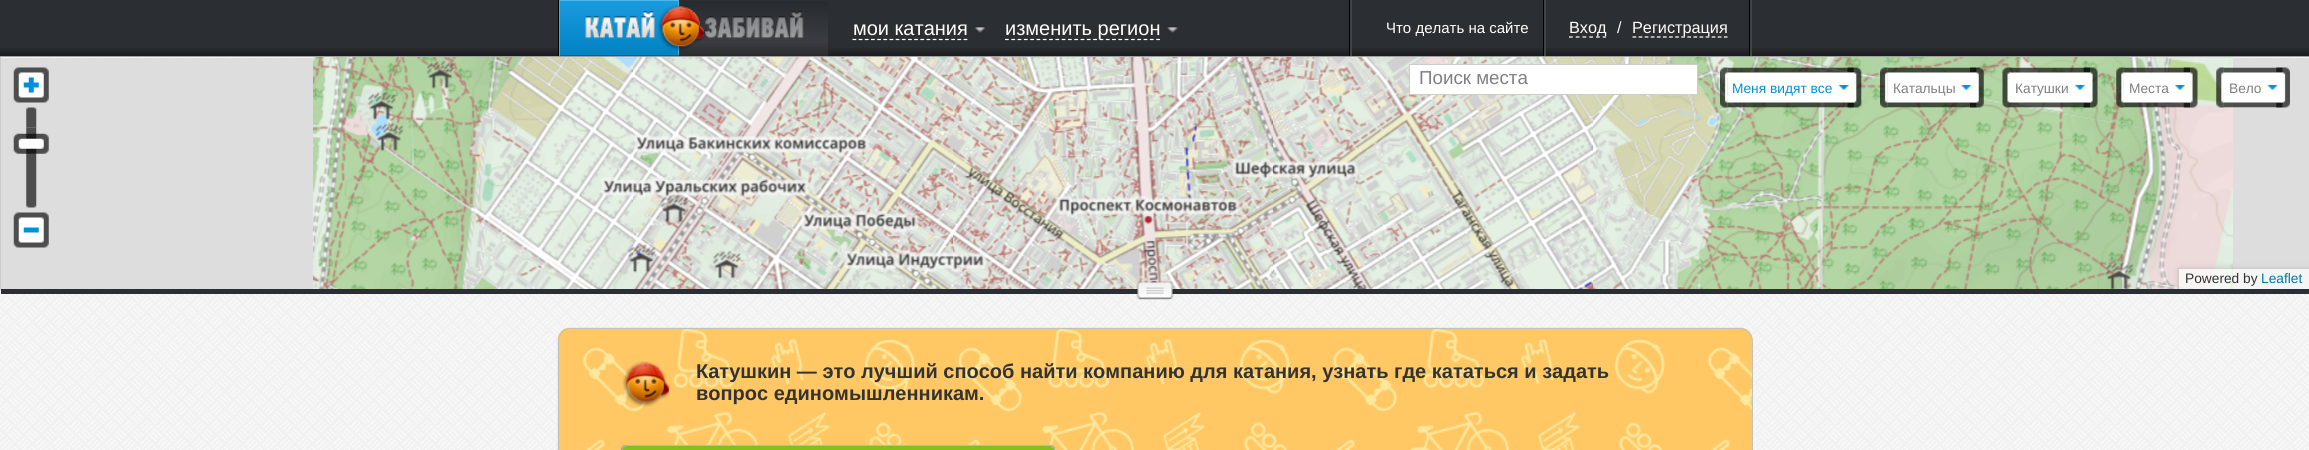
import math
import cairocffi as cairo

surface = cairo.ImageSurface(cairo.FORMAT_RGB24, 2309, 450)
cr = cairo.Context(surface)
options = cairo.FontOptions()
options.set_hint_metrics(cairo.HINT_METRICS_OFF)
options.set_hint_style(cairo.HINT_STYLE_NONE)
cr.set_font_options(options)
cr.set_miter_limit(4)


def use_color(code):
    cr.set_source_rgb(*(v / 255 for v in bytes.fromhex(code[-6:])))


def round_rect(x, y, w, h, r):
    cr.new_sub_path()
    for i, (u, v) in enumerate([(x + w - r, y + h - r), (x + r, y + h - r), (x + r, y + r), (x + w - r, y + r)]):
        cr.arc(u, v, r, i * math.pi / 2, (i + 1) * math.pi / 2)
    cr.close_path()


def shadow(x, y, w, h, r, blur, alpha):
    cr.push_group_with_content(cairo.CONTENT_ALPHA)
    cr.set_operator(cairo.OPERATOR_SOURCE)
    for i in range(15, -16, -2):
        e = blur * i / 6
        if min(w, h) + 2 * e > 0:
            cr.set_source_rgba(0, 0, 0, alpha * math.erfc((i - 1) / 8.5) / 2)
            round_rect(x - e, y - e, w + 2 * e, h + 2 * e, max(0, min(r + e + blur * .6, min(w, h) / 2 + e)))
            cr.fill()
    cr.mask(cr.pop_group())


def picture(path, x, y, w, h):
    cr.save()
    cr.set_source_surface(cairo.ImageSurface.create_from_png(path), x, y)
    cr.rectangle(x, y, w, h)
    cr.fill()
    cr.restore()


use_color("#ffffff")
cr.paint()
picture("img1.png", 0, 57, 2309, 393)
use_color("#2b2f33")
cr.rectangle(0, 0, 2309, 48)
cr.fill()
cr.rectangle(0.5, 56.5, 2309, 233)
use_color("#cccccc")
cr.set_line_width(1)
cr.stroke()
picture("img2.png", 0, 48, 2309, 9)
use_color("#000000")
cr.rectangle(558, 0, 1, 56)
cr.fill()
gradient = cairo.LinearGradient(560, 1.2, 560, 55)
gradient.add_color_stop_rgba(0, 0.102, 0.608, 0.867, 1)
gradient.add_color_stop_rgba(1, 0.004, 0.51, 0.765, 1)
cr.set_source(gradient)
cr.rectangle(560, 1, 118, 54)
cr.fill()
use_color("#53b4e6")
cr.rectangle(559, 0, 120, 1)
cr.fill()
use_color("#4aacdd")
cr.rectangle(678, 0, 1, 56)
cr.fill()
use_color("#3d5072")
cr.rectangle(559, 55, 120, 1)
cr.fill()
use_color("#4aacdd")
cr.rectangle(559, 0, 1, 56)
cr.fill()
picture("img3.png", 585, 11, 70, 28)
gradient = cairo.LinearGradient(680, 1.2, 680, 55)
gradient.add_color_stop_rgba(0, 0.153, 0.165, 0.18, 1)
gradient.add_color_stop_rgba(0.75, 0.227, 0.239, 0.255, 1)
gradient.add_color_stop_rgba(1, 0.169, 0.176, 0.188, 1)
cr.set_source(gradient)
cr.rectangle(679, 1, 149, 54)
cr.fill()
gradient = cairo.LinearGradient(680, 55, 680, 109)
gradient.add_color_stop_rgba(0, 0.153, 0.165, 0.18, 1)
gradient.add_color_stop_rgba(0.75, 0.227, 0.239, 0.255, 1)
gradient.add_color_stop_rgba(1, 0.169, 0.176, 0.188, 1)
cr.set_source(gradient)
cr.rectangle(679, 55, 149, 1)
cr.fill()
picture("img4.png", 705, 11, 99, 28)
picture("img5.png", 657, 5, 49, 46)
cr.select_font_face("Liberation Sans")
cr.set_font_size(20)
use_color("#ffffff")
cr.move_to(853, 35)
cr.show_text("мои катания")
cr.new_path()
cr.move_to(852.5, 39.5)
cr.line_to(967.5, 39.5)
cr.set_line_width(1.2)
cr.set_dash([3.75, 2.42])
cr.stroke()
picture("img6.png", 974, 26, 12, 7)
cr.new_path()
cr.move_to(1005, 39.5)
cr.line_to(1160, 39.5)
cr.set_dash([3.75, 2.55])
cr.stroke()
cr.move_to(1005, 35)
cr.show_text("изменить регион")
picture("img7.png", 1167, 26, 11, 7)
use_color("#414448")
cr.rectangle(1350, 0, 2, 56)
cr.fill()
use_color("#000000")
cr.rectangle(1349, 0, 1, 56)
cr.fill()
cr.set_font_size(15)
use_color("#ffffff")
cr.move_to(1386, 33)
cr.show_text("Что делать на сайте")
use_color("#414448")
cr.rectangle(1544, 0, 2, 56)
cr.fill()
use_color("#000000")
cr.rectangle(1543, 0, 1, 56)
cr.fill()
cr.new_path()
cr.move_to(1569, 37)
cr.line_to(1606, 37)
use_color("#ffffff")
cr.set_dash([3.75, 3])
cr.stroke()
cr.set_font_size(16.25)
cr.move_to(1569, 33)
cr.show_text("Вход")
cr.move_to(1617, 33)
cr.show_text("/")
cr.new_path()
cr.move_to(1632.5, 37)
cr.line_to(1727.5, 37)
cr.set_dash([3.75, 2.34])
cr.stroke()
cr.move_to(1632, 33)
cr.show_text("Регистрация")
use_color("#414448")
cr.rectangle(1750, 0, 2, 56)
cr.fill()
use_color("#000000")
cr.rectangle(1749, 0, 1, 56)
cr.fill()
use_color("#dddddd")
cr.rectangle(1, 58, 2308, 231)
cr.fill()
picture("img8.png", 13, 67, 36, 36)
picture("img9.png", 26, 127, 11, 81)
picture("img10.png", 26, 107, 11, 21)
picture("img11.png", 13, 133, 36, 21)
picture("img12.png", 13, 212, 36, 36)
picture("img36.png", 1273, 57, 320, 232)
picture("img37.png", 1593, 57, 320, 232)
use_color("#ffffff")
cr.rectangle(1409.5, 64.5, 288, 30)
cr.fill_preserve()
use_color("#cccccc")
cr.set_line_width(1)
cr.set_dash([])
cr.stroke()
cr.set_font_size(18.75)
use_color("#808080")
cr.move_to(1419, 84)
cr.show_text("Поиск места")
picture("img13.png", 1847, 67, 15, 41)
picture("img15.png", 1727, 67, 127, 41)
picture("img14.png", 1720, 67, 8, 41)
cr.set_font_size(13.75)
use_color("#0090d9")
cr.move_to(1732, 93)
cr.show_text("Меня видят все")
picture("img16.png", 1838, 85, 11, 5)
picture("img38.png", 1913, 57, 320, 232)
picture("img17.png", 1970, 67, 14, 41)
picture("img19.png", 1887, 67, 90, 41)
picture("img18.png", 1880, 67, 8, 41)
use_color("#808080")
cr.move_to(1893, 93)
cr.show_text("Катальцы")
picture("img20.png", 1961, 85, 11, 5)
picture("img21.png", 2083, 67, 15, 41)
picture("img22.png", 2002, 67, 8, 41)
picture("img23.png", 2010, 67, 80, 41)
cr.move_to(2015, 93)
cr.show_text("Катушки")
picture("img24.png", 2075, 85, 10, 5)
picture("img25.png", 2183, 67, 15, 41)
picture("img27.png", 2123, 67, 67, 41)
picture("img26.png", 2116, 67, 8, 41)
cr.move_to(2129, 93)
cr.show_text("Места")
picture("img28.png", 2175, 85, 10, 5)
picture("img29.png", 2276, 67, 14, 41)
picture("img31.png", 2223, 67, 60, 41)
picture("img30.png", 2216, 67, 8, 41)
cr.move_to(2229, 93)
cr.show_text("Вело")
picture("img32.png", 2267, 85, 11, 5)
picture("img33.png", 313, 57, 320, 232)
picture("img34.png", 633, 57, 320, 232)
picture("img35.png", 953, 57, 320, 232)
use_color("#2b2f33")
cr.rectangle(1, 289, 2308, 5)
cr.fill()
cr.save()
cr.rectangle(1, 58, 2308, 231)
cr.clip()
cr.set_fill_rule(cairo.FILL_RULE_EVEN_ODD)
cr.new_path()
cr.move_to(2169, 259)
cr.line_to(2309, 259)
cr.line_to(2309, 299)
cr.line_to(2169, 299)
cr.close_path()
cr.move_to(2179, 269)
cr.line_to(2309, 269)
cr.line_to(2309, 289)
cr.line_to(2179, 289)
cr.close_path()
cr.clip()
use_color("#bbbbbb")
shadow(2179, 269, 130, 20, 0, 3, 1)
cr.restore()
cr.set_source_rgba(1, 1, 1, 0.7)
cr.rectangle(2179, 269, 130, 20)
cr.fill()
use_color("#333333")
cr.move_to(2185, 283)
cr.show_text("Powered by")
use_color("#0078a8")
cr.move_to(2261, 283)
cr.show_text("Leaflet")
picture("img39.png", 1136, 281, 38, 19)
picture("img40.png", 557, 327, 1196, 123)
round_rect(558.5, 328.5, 1194, 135, 12.5)
use_color("#c1c1c1")
cr.stroke()
picture("img41.png", 622, 361, 49, 46)
cr.select_font_face("Liberation Sans", cairo.FONT_SLANT_NORMAL, cairo.FONT_WEIGHT_BOLD)
cr.set_font_size(20)
use_color("#333333")
cr.move_to(696, 378)
cr.show_text("Катушкин — это лучший способ найти компанию для катания, узнать где кататься и задать")
cr.move_to(696, 400)
cr.show_text("вопрос единомышленникам.")
use_color("#6ea600")
round_rect(621, 445, 434, 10, 5)
cr.fill()
picture("img42.png", 621, 446, 434, 4)
cr.new_path()
cr.move_to(623, 447)
cr.line_to(626, 445.5)
cr.line_to(1050, 445.5)
cr.line_to(1053, 447)
use_color("#b6bbc2")
cr.set_line_width(1.2)
cr.stroke()
cr.new_path()
cr.move_to(1053, 447)
cr.curve_to(1054, 447.5, 1054.5, 449, 1054.5, 450)
cr.line_to(1054.5, 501)
cr.curve_to(1054.5, 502.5, 1054, 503.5, 1053, 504.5)
use_color("#aeb3b9")
cr.stroke()
cr.new_path()
cr.move_to(623, 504.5)
cr.curve_to(622.5, 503.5, 622, 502.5, 622, 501)
cr.line_to(622, 450)
cr.curve_to(622, 449, 622.5, 447.5, 623, 447)
use_color("#adb3b9")
cr.stroke()
surface.write_to_png("result.png")
